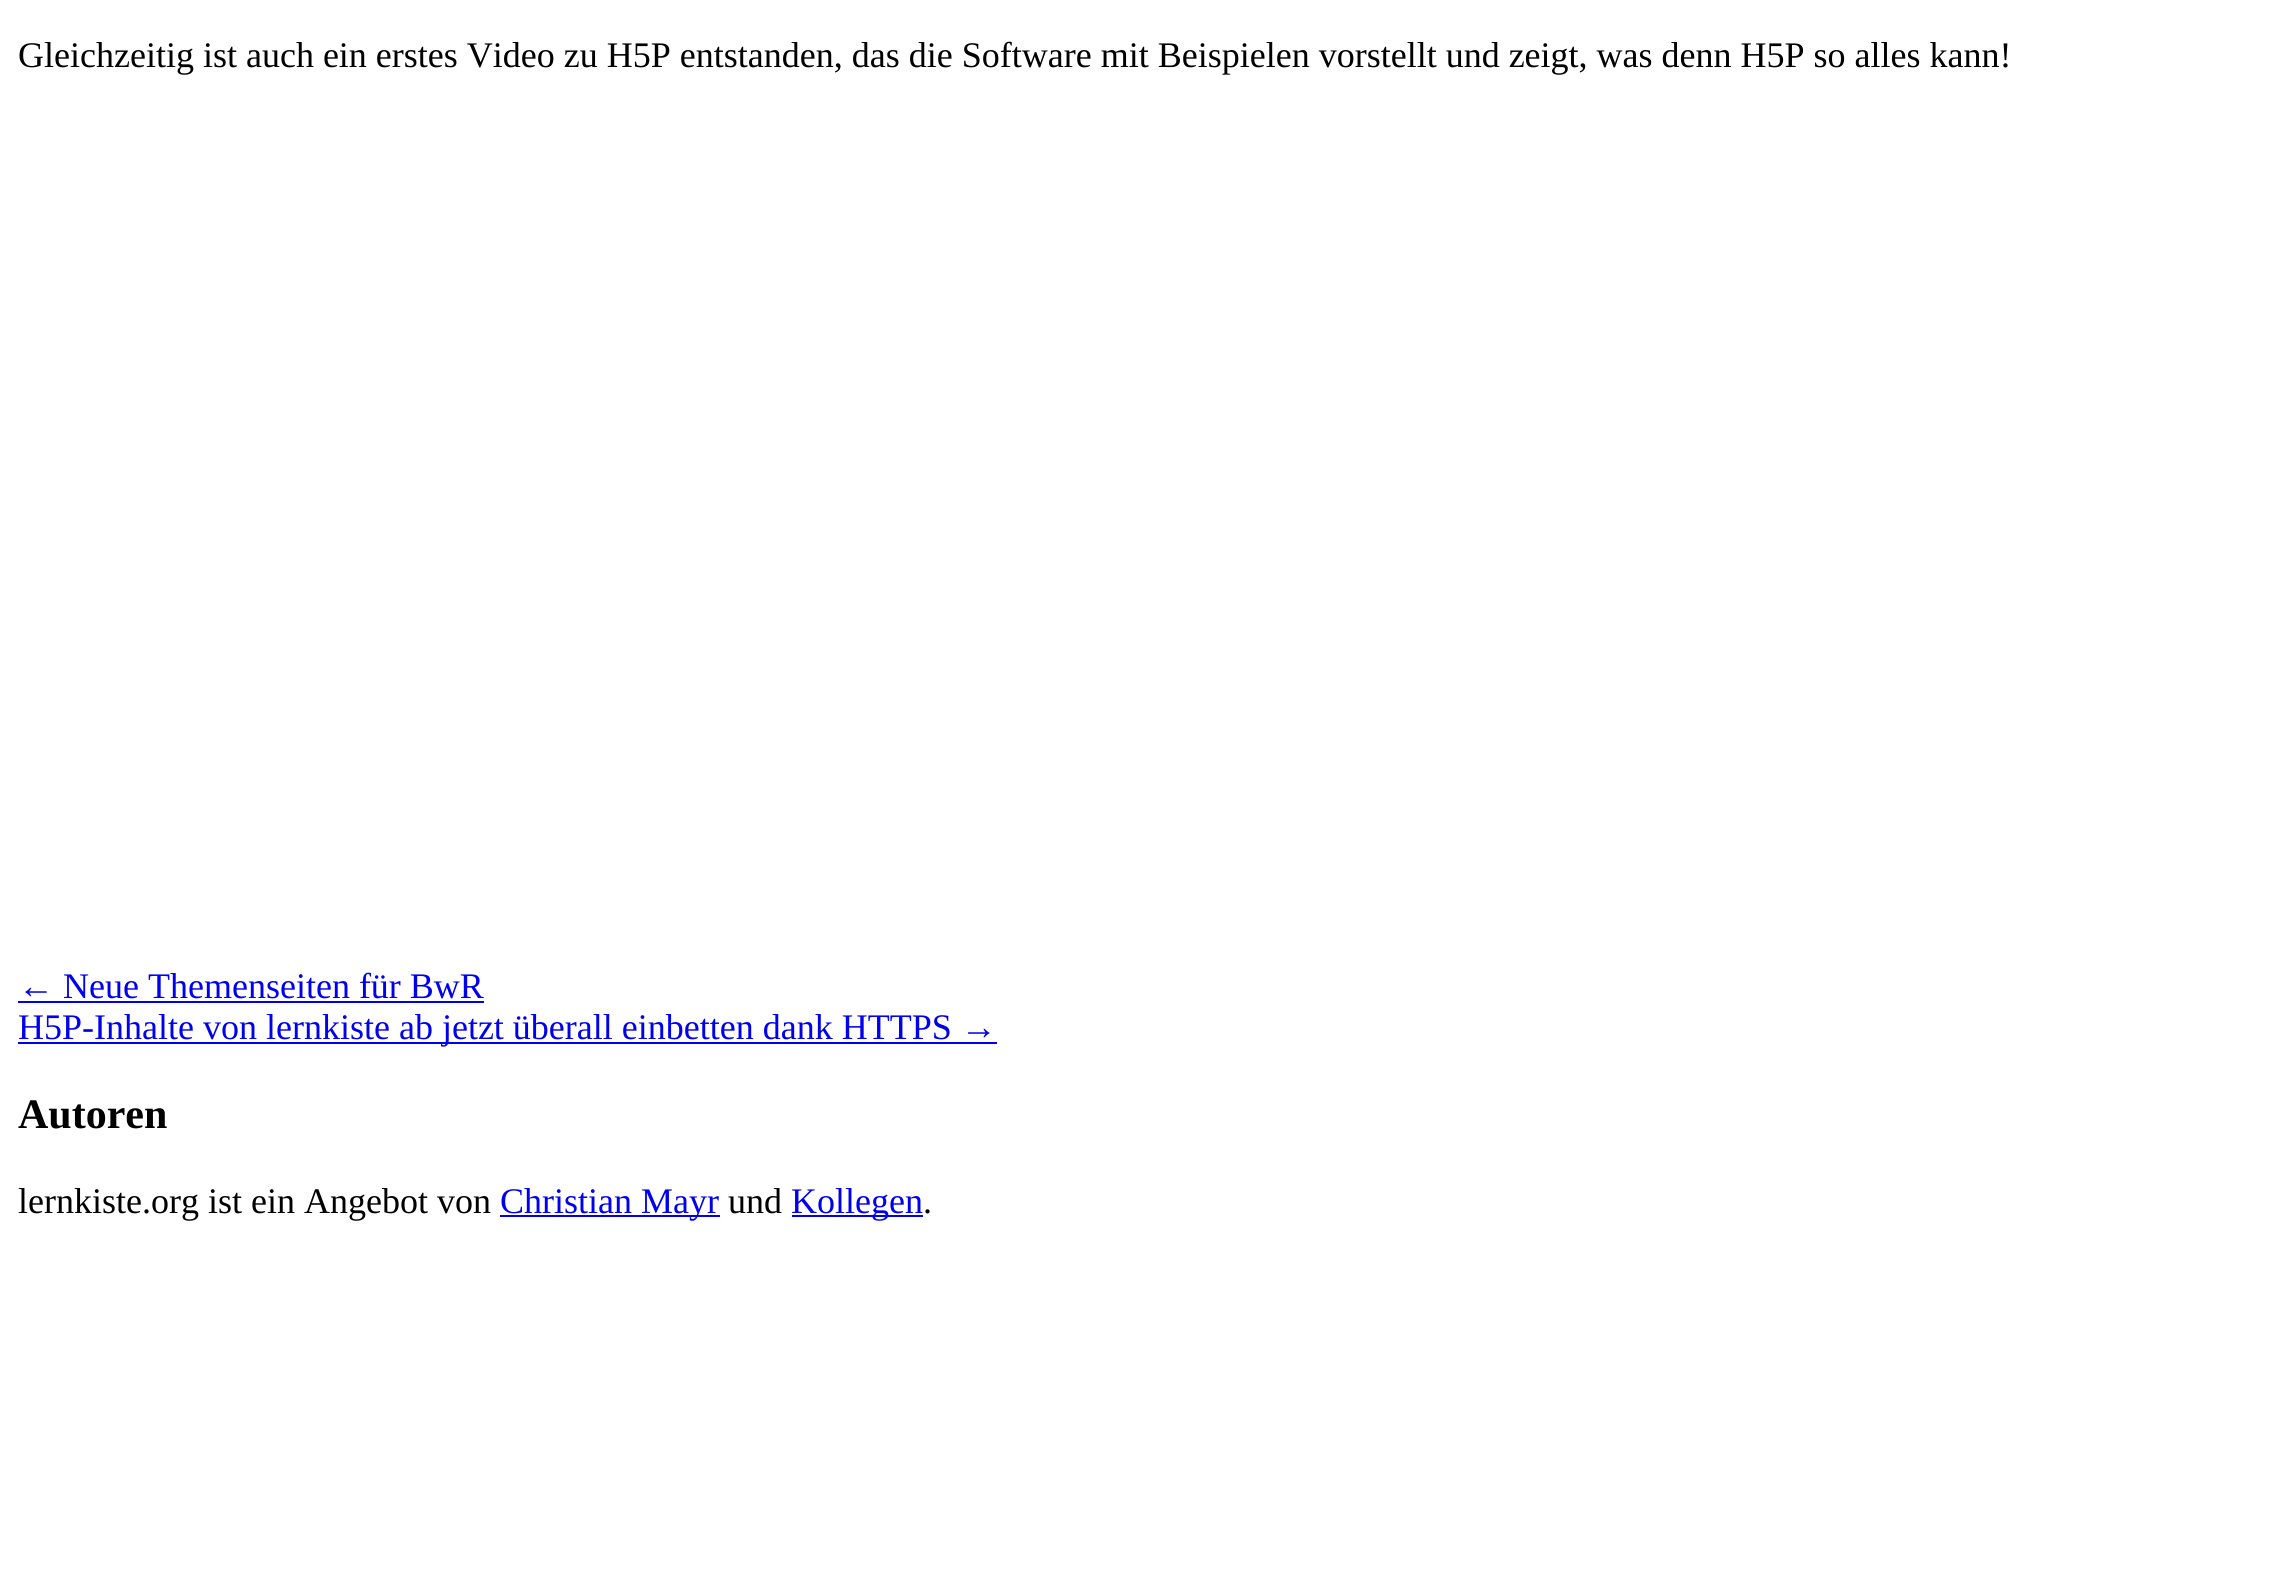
import math
import cairocffi as cairo

surface = cairo.ImageSurface(cairo.FORMAT_RGB24, 2295, 1581)
cr = cairo.Context(surface)
options = cairo.FontOptions()
options.set_hint_metrics(cairo.HINT_METRICS_OFF)
options.set_hint_style(cairo.HINT_STYLE_NONE)
cr.set_font_options(options)
cr.set_miter_limit(4)


def use_color(code):
    cr.set_source_rgb(*(v / 255 for v in bytes.fromhex(code[-6:])))


use_color("#ffffff")
cr.paint()
cr.select_font_face("Liberation Serif")
cr.set_font_size(36)
use_color("#000000")
cr.move_to(18, 67)
cr.show_text("Gleichzeitig ist auch ein erstes Video zu H5P entstanden, das die Software mit Beispielen vorstellt und zeigt, was denn H5P so alles kann!")
use_color("#0000ee")
cr.move_to(18, 998)
cr.show_text("← Neue Themenseiten für BwR")
cr.rectangle(18, 1001, 466, 2)
cr.fill()
cr.rectangle(18, 1042, 979, 2)
cr.fill()
cr.move_to(18, 1039)
cr.show_text("H5P-Inhalte von lernkiste ab jetzt überall einbetten dank HTTPS →")
cr.select_font_face("Liberation Serif", cairo.FONT_SLANT_NORMAL, cairo.FONT_WEIGHT_BOLD)
cr.set_font_size(42)
use_color("#000000")
cr.move_to(18, 1128)
cr.show_text("Autoren")
cr.select_font_face("Liberation Serif")
cr.set_font_size(36)
cr.move_to(18, 1213)
cr.show_text("lernkiste.org ist ein Angebot von")
use_color("#0000ee")
cr.rectangle(500, 1215, 220, 2)
cr.fill()
cr.move_to(500, 1213)
cr.show_text("Christian Mayr")
use_color("#000000")
cr.move_to(728, 1213)
cr.show_text("und")
use_color("#0000ee")
cr.rectangle(792, 1215, 131, 2)
cr.fill()
cr.move_to(791, 1213)
cr.show_text("Kollegen")
use_color("#000000")
cr.move_to(923, 1213)
cr.show_text(".")
surface.write_to_png("result.png")
